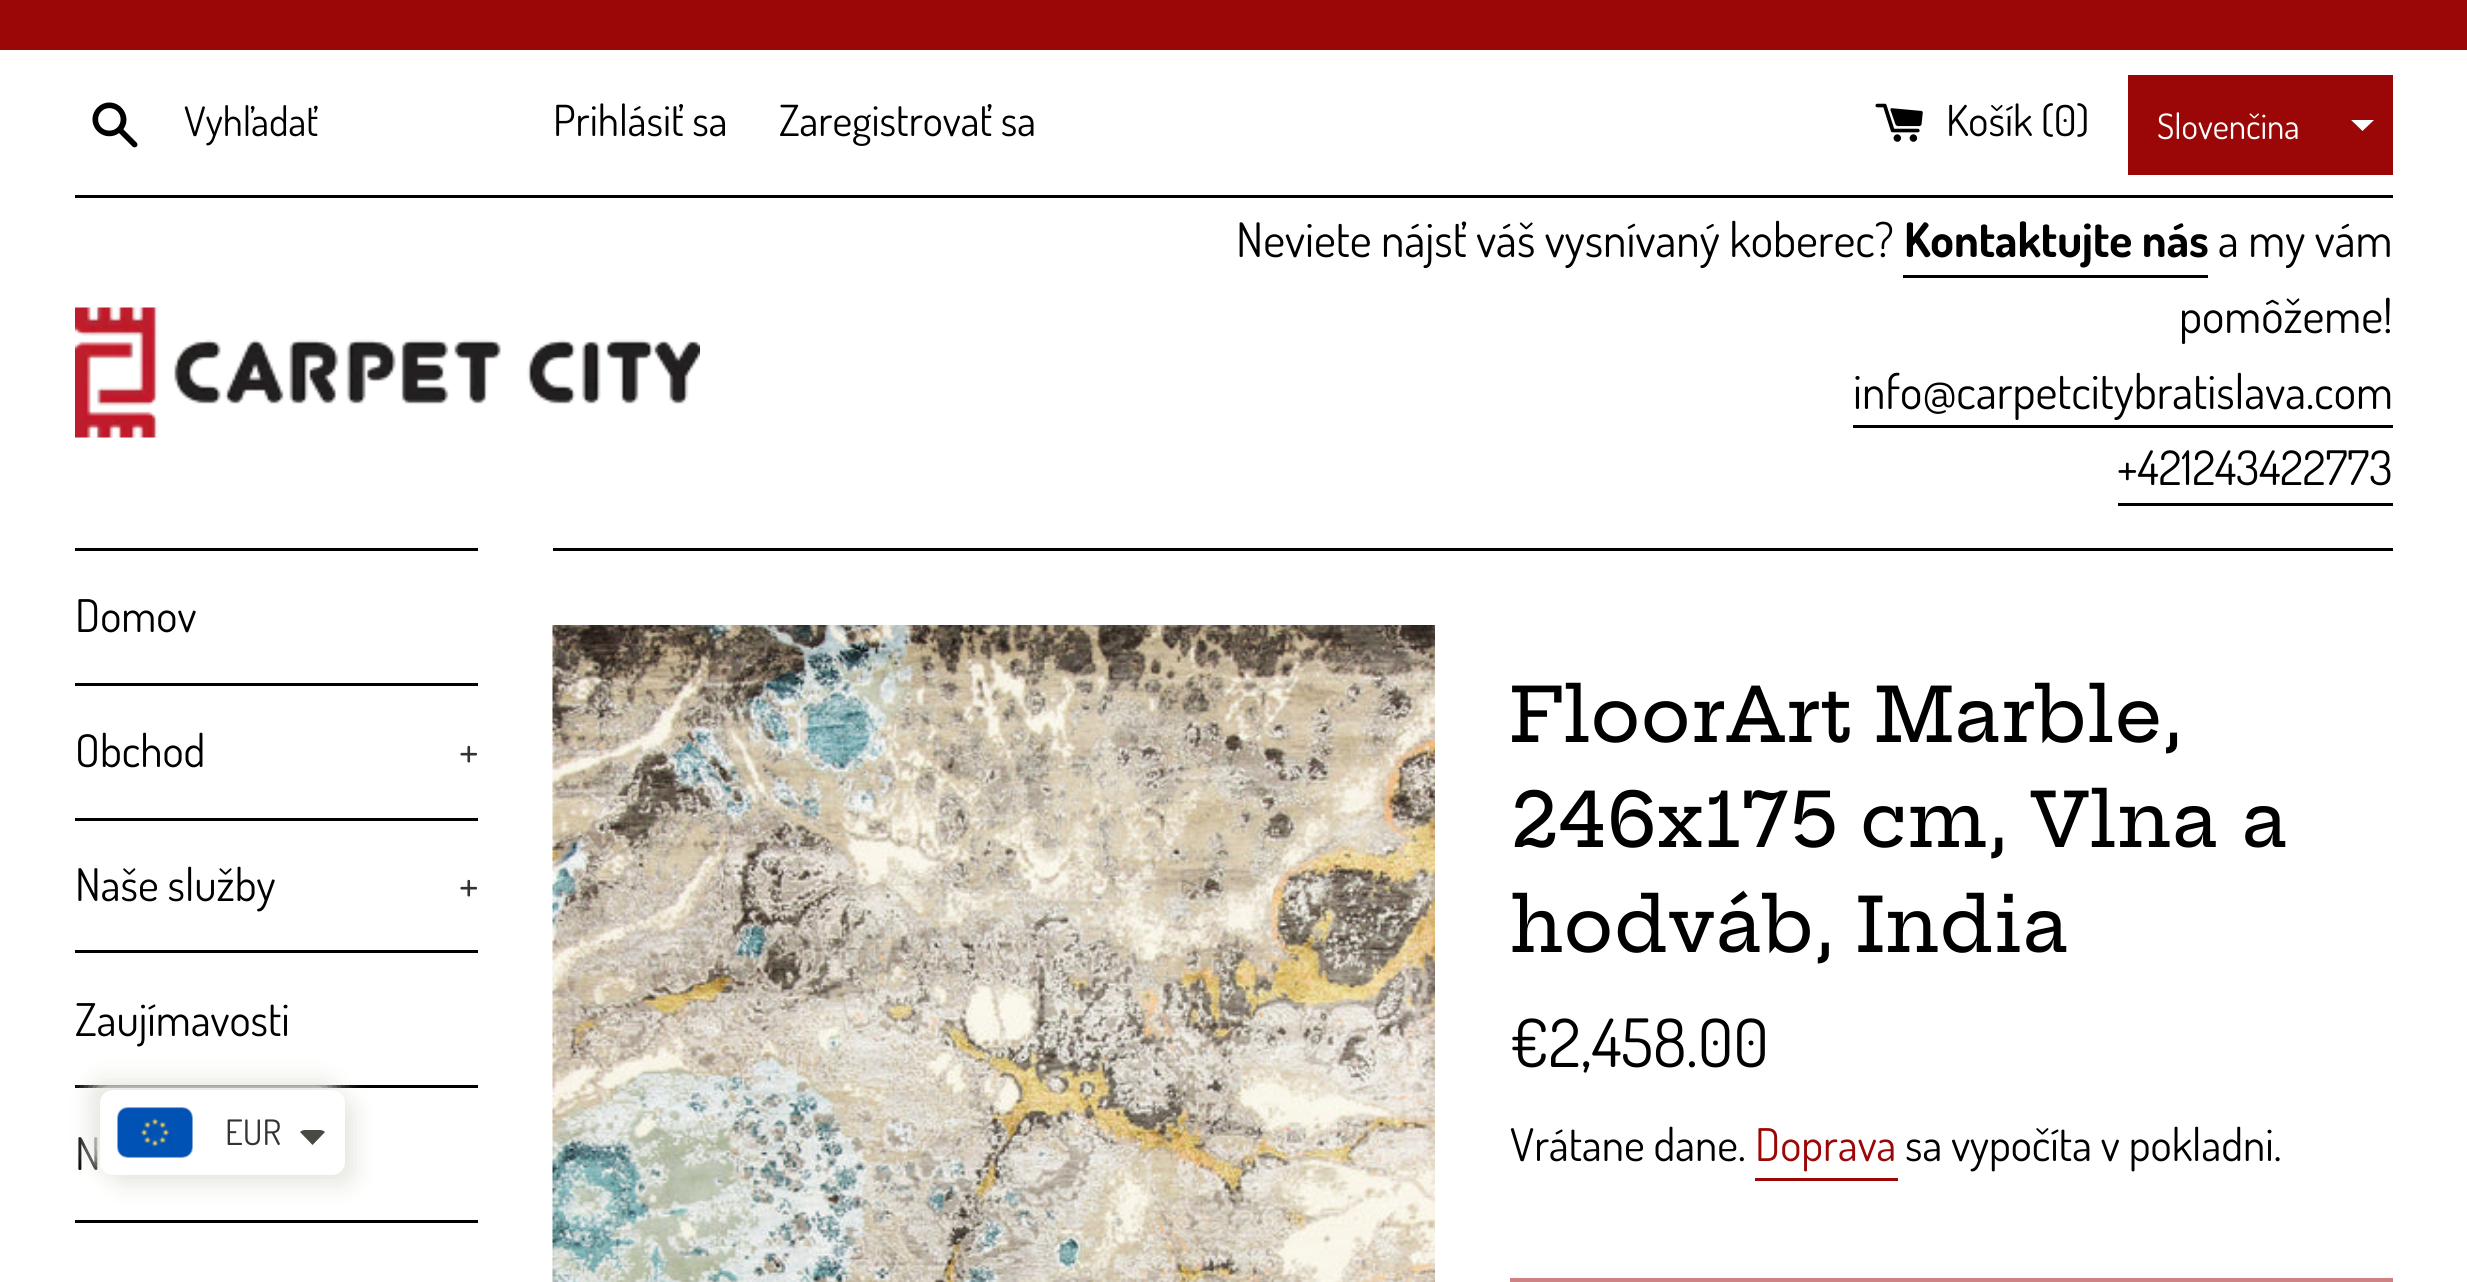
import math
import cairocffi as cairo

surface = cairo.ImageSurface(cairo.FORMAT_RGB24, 2467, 1282)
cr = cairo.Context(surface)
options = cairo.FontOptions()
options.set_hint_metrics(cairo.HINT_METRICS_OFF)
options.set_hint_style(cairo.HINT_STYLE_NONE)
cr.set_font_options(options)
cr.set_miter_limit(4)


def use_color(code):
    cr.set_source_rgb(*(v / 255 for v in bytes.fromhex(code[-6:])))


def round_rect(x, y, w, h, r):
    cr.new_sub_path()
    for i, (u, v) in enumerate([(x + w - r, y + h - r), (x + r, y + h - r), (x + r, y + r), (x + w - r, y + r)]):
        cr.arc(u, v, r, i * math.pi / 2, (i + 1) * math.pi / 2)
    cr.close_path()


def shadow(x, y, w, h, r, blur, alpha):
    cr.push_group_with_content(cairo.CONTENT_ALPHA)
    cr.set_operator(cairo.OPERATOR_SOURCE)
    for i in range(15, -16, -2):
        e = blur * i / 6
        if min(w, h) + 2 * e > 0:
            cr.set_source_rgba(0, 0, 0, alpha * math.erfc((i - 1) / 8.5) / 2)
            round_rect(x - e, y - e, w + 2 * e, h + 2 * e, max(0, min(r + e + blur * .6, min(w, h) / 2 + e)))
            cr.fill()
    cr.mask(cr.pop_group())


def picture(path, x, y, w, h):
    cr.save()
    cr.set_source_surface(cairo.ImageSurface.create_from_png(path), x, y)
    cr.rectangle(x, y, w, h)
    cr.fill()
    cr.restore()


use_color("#ffffff")
cr.paint()
use_color("#9b0707")
cr.rectangle(0, 0, 2467, 50)
cr.fill()
picture("img1.png", 92, 102, 46, 46)
cr.select_font_face("Dosis")
cr.set_font_size(40.5)
use_color("#000000")
cr.move_to(184, 136)
cr.show_text("Vyhľadať")
cr.set_font_size(42.75)
cr.move_to(553, 136)
cr.show_text("Prihlásiť sa")
cr.move_to(779, 136)
cr.show_text("Zaregistrovať sa")
picture("img2.png", 1875, 103, 48, 39)
cr.move_to(1946, 136)
cr.show_text("Košík (0)")
use_color("#9b0707")
cr.rectangle(2128, 75, 265, 100)
cr.fill()
cr.set_font_size(35)
use_color("#ffffff")
cr.move_to(2157, 139)
cr.show_text("Slovenčina")
cr.save()
cr.rectangle(2350, 120, 25, 13)
cr.clip()
cr.set_fill_rule(cairo.FILL_RULE_EVEN_ODD)
cr.new_path()
cr.move_to(2375, 119)
cr.line_to(2362.5, 131)
cr.line_to(2350, 119)
cr.close_path()
cr.fill()
cr.restore()
use_color("#000000")
cr.rectangle(75, 195, 2318, 3)
cr.fill()
picture("img3.png", 75, 307, 625, 131)
cr.set_font_size(47.5)
cr.move_to(1236, 257)
cr.show_text("Neviete nájsť váš vysnívaný koberec?")
cr.select_font_face("Dosis", cairo.FONT_SLANT_NORMAL, cairo.FONT_WEIGHT_BOLD)
cr.move_to(1904, 257)
cr.show_text("Kontaktujte nás")
cr.rectangle(1903, 275, 305, 3)
cr.fill()
cr.select_font_face("Dosis")
cr.move_to(2218, 257)
cr.show_text("a my vám")
cr.move_to(2179, 333)
cr.show_text("pomôžeme!")
cr.move_to(1853, 409)
cr.show_text("info@carpetcitybratislava.com")
cr.rectangle(1853, 425, 540, 3)
cr.fill()
cr.move_to(2117, 485)
cr.show_text("+421243422773")
cr.rectangle(2118, 503, 275, 3)
cr.fill()
cr.rectangle(75, 548, 403, 3)
cr.fill()
cr.rectangle(75, 683, 403, 3)
cr.fill()
cr.set_font_size(45)
cr.move_to(75, 632)
cr.show_text("Domov")
cr.rectangle(75, 818, 403, 3)
cr.fill()
cr.move_to(75, 767)
cr.show_text("Obchod")
use_color("#333333")
cr.move_to(459, 767)
cr.show_text("+")
use_color("#000000")
cr.rectangle(75, 950, 403, 3)
cr.fill()
cr.move_to(75, 901)
cr.show_text("Naše služby")
use_color("#333333")
cr.move_to(459, 901)
cr.show_text("+")
use_color("#000000")
cr.rectangle(75, 1085, 403, 3)
cr.fill()
cr.move_to(75, 1036)
cr.show_text("Zaujímavosti")
cr.rectangle(75, 1220, 403, 3)
cr.fill()
cr.move_to(75, 1170)
cr.show_text("N")
cr.rectangle(553, 548, 1840, 3)
cr.fill()
picture("img4.png", 552, 625, 883, 657)
cr.select_font_face("Hepta Slab Medium")
cr.set_font_size(75)
cr.move_to(1510, 742)
cr.show_text("FloorArt Marble,")
cr.move_to(1510, 847)
cr.show_text("246x175 cm, Vlna a")
cr.move_to(1510, 952)
cr.show_text("hodváb, India")
cr.select_font_face("Dosis")
cr.set_font_size(66.5)
cr.move_to(1510, 1067)
cr.show_text("€2,458.00")
cr.set_font_size(45)
cr.move_to(1510, 1161)
cr.show_text("Vrátane dane.")
use_color("#9b0707")
cr.move_to(1755, 1161)
cr.show_text("Doprava")
cr.rectangle(1755, 1178, 143, 3)
cr.fill()
use_color("#000000")
cr.move_to(1905, 1161)
cr.show_text("sa vypočíta v pokladni.")
use_color("#cd8383")
cr.rectangle(1510, 1278, 883, 4)
cr.fill()
use_color("#e8e8e2")
shadow(90, 1080, 245, 85, 13, 11, 1)
shadow(110, 1100, 245, 85, 13, 11, 1)
use_color("#ffffff")
round_rect(100, 1090, 245, 85, 13)
cr.fill()
picture("img5.png", 117, 1107, 76, 51)
cr.set_font_size(35)
use_color("#333333")
cr.move_to(225, 1145)
cr.show_text("EUR")
use_color("#474942")
cr.new_path()
cr.move_to(305, 1130)
cr.curve_to(303, 1130, 301, 1131, 300, 1132)
cr.line_to(312.5, 1145)
cr.line_to(325, 1132)
cr.curve_to(324, 1131, 322, 1130, 320, 1130)
cr.close_path()
cr.fill()
surface.write_to_png("result.png")
